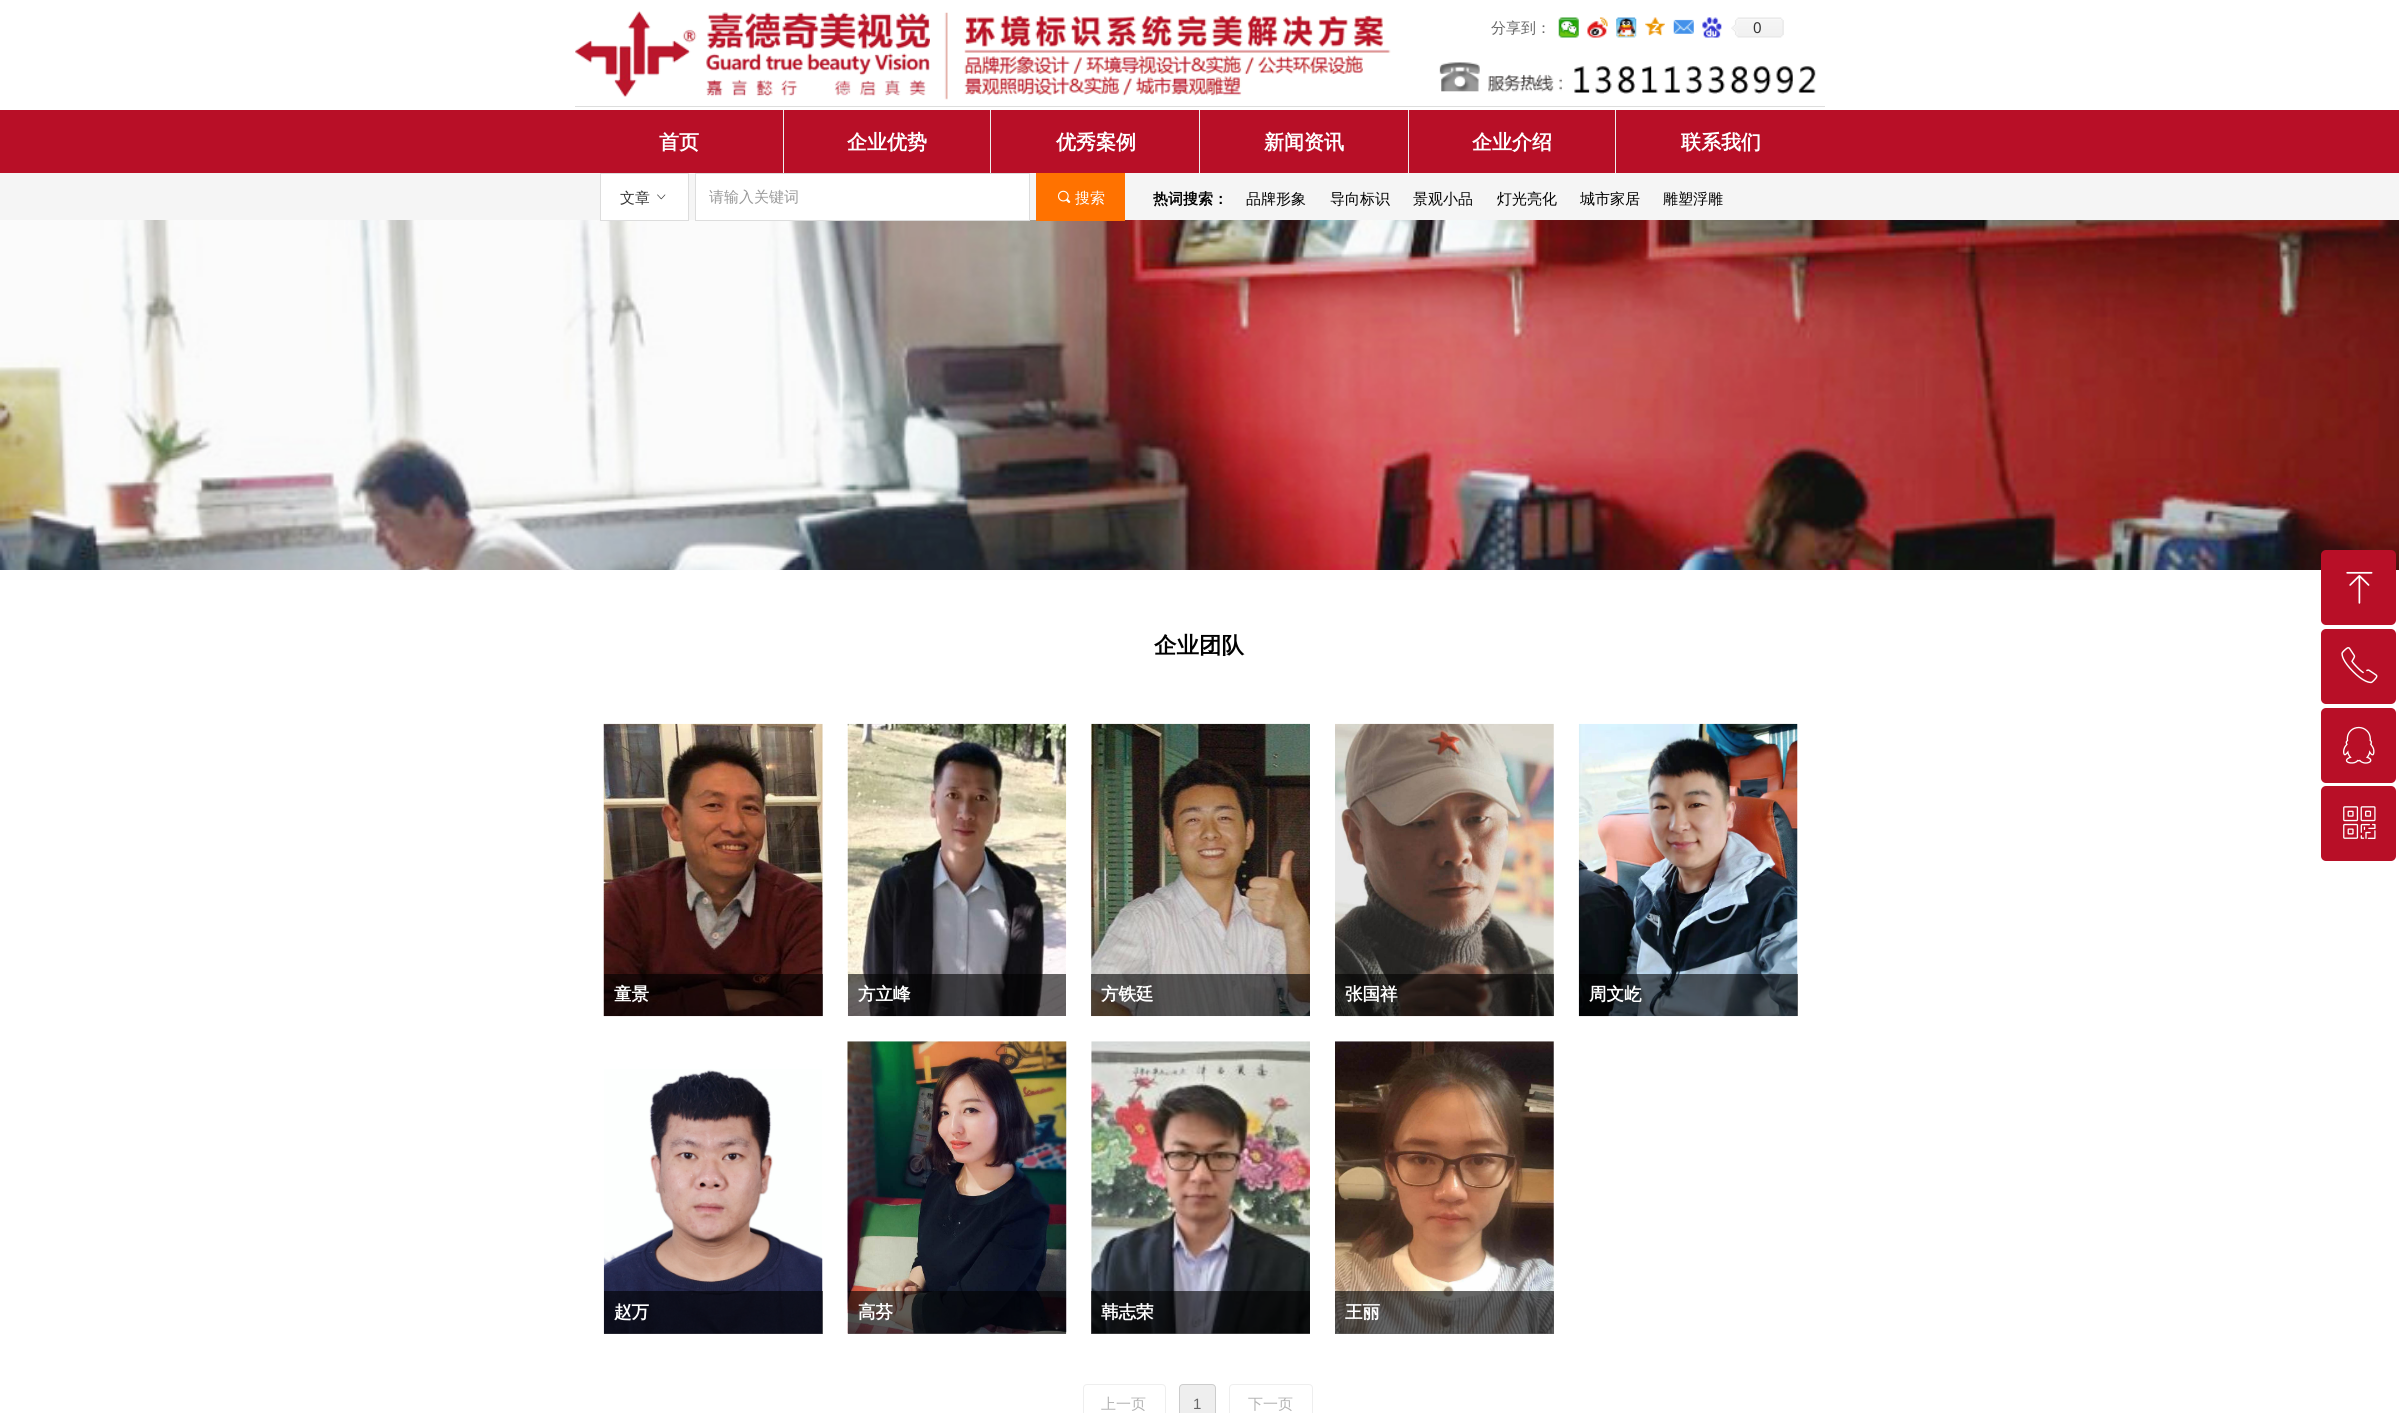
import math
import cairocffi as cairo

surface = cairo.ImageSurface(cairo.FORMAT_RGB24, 2399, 1413)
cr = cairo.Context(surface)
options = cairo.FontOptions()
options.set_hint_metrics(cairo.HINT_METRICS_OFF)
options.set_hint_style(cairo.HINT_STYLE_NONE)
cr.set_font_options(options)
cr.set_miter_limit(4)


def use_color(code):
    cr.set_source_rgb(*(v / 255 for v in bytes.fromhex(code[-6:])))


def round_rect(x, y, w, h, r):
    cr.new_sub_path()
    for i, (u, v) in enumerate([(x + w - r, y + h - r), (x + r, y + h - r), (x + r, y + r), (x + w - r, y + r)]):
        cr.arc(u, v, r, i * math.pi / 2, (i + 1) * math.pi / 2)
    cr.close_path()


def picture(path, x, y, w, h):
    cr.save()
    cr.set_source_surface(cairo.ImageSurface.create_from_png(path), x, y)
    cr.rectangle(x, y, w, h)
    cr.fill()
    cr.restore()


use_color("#ffffff")
cr.paint()
picture("img1.png", 575, 11, 355, 86)
picture("img2.png", 930, 12, 461, 88)
cr.select_font_face("WenQuanYi Zen Hei Medium")
cr.set_font_size(15)
use_color("#666666")
cr.move_to(1491, 33)
cr.show_text("分享到：")
picture("img3.png", 1558, 17, 21, 21)
picture("img4.png", 1587, 17, 21, 21)
picture("img5.png", 1616, 17, 21, 21)
picture("img6.png", 1645, 17, 20, 19)
picture("img7.png", 1673, 19, 21, 15)
picture("img8.png", 1702, 17, 20, 21)
picture("img9.png", 1731, 17, 53, 21)
cr.select_font_face("Noto Sans")
use_color("#333333")
cr.move_to(1753, 33)
cr.show_text("0")
picture("img10.png", 1439, 62, 377, 32)
use_color("#dddddd")
cr.rectangle(575, 106, 1250, 1)
cr.fill()
use_color("#b80f27")
cr.rectangle(0, 110, 2399, 63)
cr.fill()
cr.select_font_face("WenQuanYi Zen Hei", cairo.FONT_SLANT_NORMAL, cairo.FONT_WEIGHT_BOLD)
cr.set_font_size(20)
use_color("#ffffff")
cr.move_to(659, 149)
cr.show_text("首页")
use_color("#eeeeee")
cr.rectangle(783, 110, 1, 63)
cr.fill()
use_color("#ffffff")
cr.move_to(847, 149)
cr.show_text("企业优势")
use_color("#eeeeee")
cr.rectangle(990, 110, 1, 63)
cr.fill()
use_color("#ffffff")
cr.move_to(1056, 149)
cr.show_text("优秀案例")
use_color("#eeeeee")
cr.rectangle(1199, 110, 1, 63)
cr.fill()
use_color("#ffffff")
cr.move_to(1264, 149)
cr.show_text("新闻资讯")
use_color("#eeeeee")
cr.rectangle(1408, 110, 1, 63)
cr.fill()
use_color("#ffffff")
cr.move_to(1472, 149)
cr.show_text("企业介绍")
use_color("#eeeeee")
cr.rectangle(1615, 110, 1, 63)
cr.fill()
use_color("#ffffff")
cr.move_to(1681, 149)
cr.show_text("联系我们")
use_color("#f5f5f5")
cr.rectangle(0, 173, 2399, 47)
cr.fill()
picture("img13.png", 0, 220, 2399, 350)
use_color("#ffffff")
cr.rectangle(600.5, 173.5, 88, 47)
cr.fill_preserve()
use_color("#dddddd")
cr.set_line_width(1)
cr.stroke()
cr.select_font_face("WenQuanYi Zen Hei Medium")
cr.set_font_size(15)
use_color("#333333")
cr.move_to(620, 203)
cr.show_text("文章")
picture("img11.png", 657, 194, 9, 6)
use_color("#ffffff")
cr.rectangle(695.5, 173.5, 334, 47)
cr.fill_preserve()
use_color("#dddddd")
cr.stroke()
use_color("#999999")
cr.move_to(709, 202)
cr.show_text("请输入关键词")
use_color("#ff7200")
cr.rectangle(1036, 173, 89, 48)
cr.fill()
picture("img12.png", 1058, 190, 13, 13)
use_color("#ffffff")
cr.move_to(1075, 203)
cr.show_text("搜索")
cr.select_font_face("WenQuanYi Zen Hei", cairo.FONT_SLANT_NORMAL, cairo.FONT_WEIGHT_BOLD)
use_color("#000000")
cr.move_to(1153, 204)
cr.show_text("热词搜索：")
cr.select_font_face("WenQuanYi Zen Hei Medium")
cr.move_to(1246, 204)
cr.show_text("品牌形象")
cr.move_to(1330, 204)
cr.show_text("导向标识")
cr.move_to(1413, 204)
cr.show_text("景观小品")
cr.move_to(1497, 204)
cr.show_text("灯光亮化")
cr.move_to(1580, 204)
cr.show_text("城市家居")
cr.move_to(1663, 204)
cr.show_text("雕塑浮雕")
cr.select_font_face("WenQuanYi Zen Hei", cairo.FONT_SLANT_NORMAL, cairo.FONT_WEIGHT_BOLD)
cr.set_font_size(22.5)
cr.move_to(1154, 653)
cr.show_text("企业团队")
picture("img14.png", 603, 723, 220, 294)
cr.set_source_rgba(0, 0, 0, 0.6)
cr.rectangle(604, 974, 219, 42)
cr.fill()
cr.set_font_size(17.5)
use_color("#ffffff")
cr.move_to(614, 1000)
cr.show_text("童景")
picture("img15.png", 847, 723, 220, 294)
cr.set_source_rgba(0, 0, 0, 0.6)
cr.rectangle(848, 974, 218, 42)
cr.fill()
use_color("#ffffff")
cr.move_to(858, 1000)
cr.show_text("方立峰")
picture("img16.png", 1091, 723, 219, 294)
cr.set_source_rgba(0, 0, 0, 0.6)
cr.rectangle(1091, 974, 219, 42)
cr.fill()
use_color("#ffffff")
cr.move_to(1101, 1000)
cr.show_text("方铁廷")
picture("img17.png", 1335, 723, 219, 294)
cr.set_source_rgba(0, 0, 0, 0.6)
cr.rectangle(1335, 974, 219, 42)
cr.fill()
use_color("#ffffff")
cr.move_to(1345, 1000)
cr.show_text("张国祥")
picture("img18.png", 1578, 723, 220, 294)
cr.set_source_rgba(0, 0, 0, 0.6)
cr.rectangle(1579, 974, 219, 42)
cr.fill()
use_color("#ffffff")
cr.move_to(1589, 1000)
cr.show_text("周文屹")
picture("img19.png", 603, 1069, 220, 265)
cr.set_source_rgba(0, 0, 0, 0.6)
cr.rectangle(604, 1291, 219, 43)
cr.fill()
use_color("#ffffff")
cr.move_to(614, 1318)
cr.show_text("赵万")
picture("img20.png", 847, 1041, 220, 293)
cr.set_source_rgba(0, 0, 0, 0.6)
cr.rectangle(848, 1291, 218, 43)
cr.fill()
use_color("#ffffff")
cr.move_to(858, 1318)
cr.show_text("高芬")
picture("img21.png", 1091, 1041, 219, 293)
cr.set_source_rgba(0, 0, 0, 0.6)
cr.rectangle(1091, 1291, 219, 43)
cr.fill()
use_color("#ffffff")
cr.move_to(1101, 1318)
cr.show_text("韩志荣")
picture("img22.png", 1335, 1041, 219, 293)
cr.set_source_rgba(0, 0, 0, 0.6)
cr.rectangle(1335, 1291, 219, 43)
cr.fill()
use_color("#ffffff")
cr.move_to(1345, 1318)
cr.show_text("王丽")
round_rect(1083.5, 1384.5, 82, 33, 3.5)
use_color("#eeeeee")
cr.stroke()
cr.select_font_face("WenQuanYi Zen Hei Medium")
cr.set_font_size(15)
use_color("#b3b3b3")
cr.move_to(1101, 1409)
cr.show_text("上一页")
use_color("#eeeeee")
round_rect(1179.5, 1384.5, 36, 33, 3.5)
cr.fill_preserve()
use_color("#cccccc")
cr.stroke()
cr.select_font_face("Liberation Sans")
use_color("#666666")
cr.move_to(1193, 1409)
cr.show_text("1")
round_rect(1229.5, 1384.5, 83, 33, 3.5)
use_color("#eeeeee")
cr.stroke()
cr.select_font_face("WenQuanYi Zen Hei Medium")
use_color("#b3b3b3")
cr.move_to(1248, 1409)
cr.show_text("下一页")
use_color("#b80f27")
round_rect(2321, 550, 75, 75, 5)
cr.fill()
picture("img23.png", 2346, 571, 27, 33)
round_rect(2321, 629, 75, 75, 5)
cr.fill()
picture("img24.png", 2341, 647, 37, 37)
round_rect(2321, 708, 75, 75, 5)
cr.fill()
picture("img25.png", 2343, 726, 32, 38)
round_rect(2321, 786, 75, 75, 5)
cr.fill()
picture("img26.png", 2343, 806, 33, 33)
surface.write_to_png("result.png")
